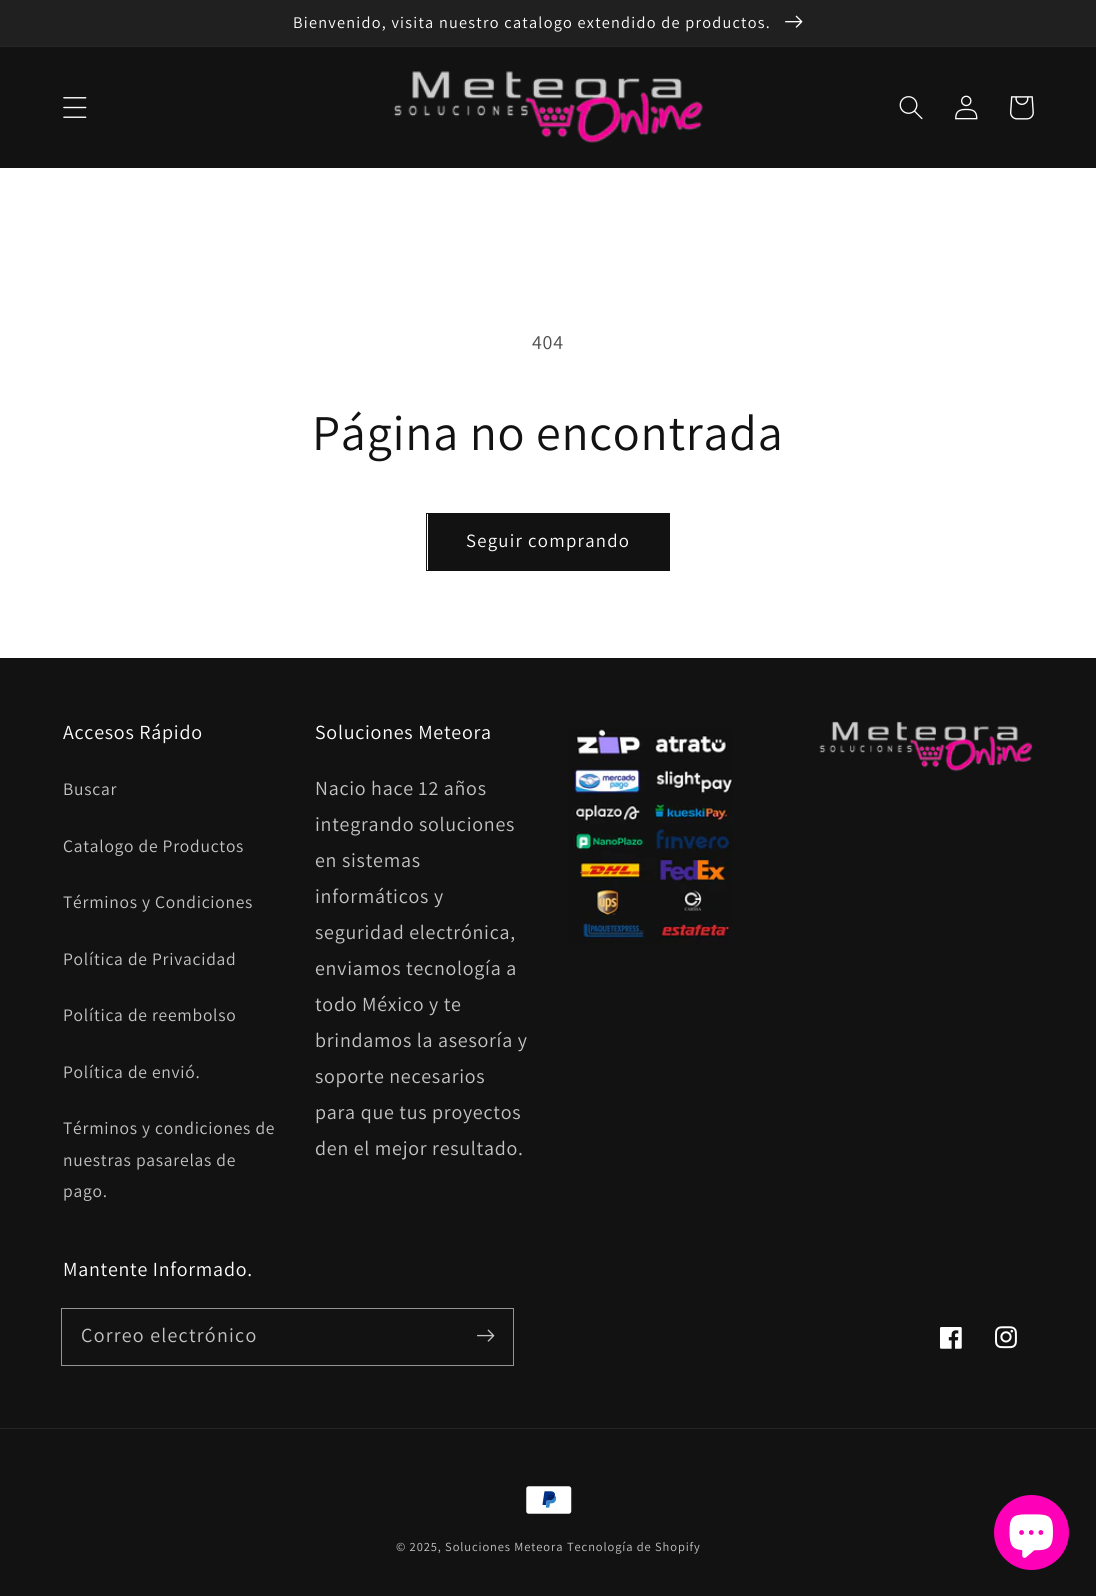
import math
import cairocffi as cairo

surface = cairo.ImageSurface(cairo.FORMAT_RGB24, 1096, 1596)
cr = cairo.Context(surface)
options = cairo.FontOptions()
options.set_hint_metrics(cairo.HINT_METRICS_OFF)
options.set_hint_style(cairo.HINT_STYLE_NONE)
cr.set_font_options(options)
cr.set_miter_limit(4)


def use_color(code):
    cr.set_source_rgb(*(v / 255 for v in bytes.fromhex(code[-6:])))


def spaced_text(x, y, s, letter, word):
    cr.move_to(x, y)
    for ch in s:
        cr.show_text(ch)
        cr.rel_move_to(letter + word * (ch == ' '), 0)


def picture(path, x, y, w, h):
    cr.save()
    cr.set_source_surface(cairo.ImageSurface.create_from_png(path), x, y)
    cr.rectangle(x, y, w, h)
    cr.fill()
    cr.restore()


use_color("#ffffff")
cr.paint()
use_color("#252525")
cr.rectangle(0, 46, 1096, 1)
cr.fill()
use_color("#202020")
cr.rectangle(0, 0, 1096, 46)
cr.fill()
cr.select_font_face("Assistant")
cr.set_font_size(16.25)
use_color("#ffffff")
spaced_text(293, 28, "Bienvenido, visita nuestro catalogo extendido de productos.", 1.25, 0)
picture("img1.png", 785, 15, 18, 13)
use_color("#121212")
cr.rectangle(0, 47, 1096, 121)
cr.fill()
picture("img2.png", 63, 97, 24, 21)
picture("img3.png", 393, 71, 310, 72)
picture("img4.png", 899, 96, 24, 24)
picture("img5.png", 955, 95, 23, 25)
picture("img6.png", 1010, 96, 24, 24)
cr.set_font_size(20)
use_color("#4d4d4d")
spaced_text(532, 349, "404", 0.75, 0)
cr.set_font_size(50)
use_color("#121212")
spaced_text(312, 450, "Página no encontrada", 0.75, 0)
cr.rectangle(426.5, 513.5, 243, 57)
cr.set_line_width(1)
cr.stroke()
cr.rectangle(428, 514, 241, 56)
cr.fill()
cr.set_font_size(18.75)
use_color("#ffffff")
spaced_text(466, 547, "Seguir comprando", 1.25, 0)
use_color("#121212")
cr.rectangle(0, 658, 1096, 938)
cr.fill()
cr.set_font_size(20)
use_color("#ffffff")
spaced_text(63, 739, "Accesos Rápido", 0.75, 0)
cr.set_font_size(17.5)
use_color("#c4c4c4")
spaced_text(63, 795, "Buscar", 0.75, 0)
spaced_text(63, 852, "Catalogo de Productos", 0.75, 0)
spaced_text(63, 908, "Términos y Condiciones", 0.75, 0)
spaced_text(63, 965, "Política de Privacidad", 0.75, 0)
spaced_text(63, 1021, "Política de reembolso", 0.75, 0)
spaced_text(63, 1078, "Política de envió.", 0.75, 0)
spaced_text(63, 1134, "Términos y condiciones de", 0.75, 0)
spaced_text(63, 1166, "nuestras pasarelas de", 0.75, 0)
spaced_text(63, 1197, "pago.", 0.75, 0)
cr.set_font_size(20)
use_color("#ffffff")
spaced_text(315, 739, "Soluciones Meteora", 0.75, 0)
use_color("#c4c4c4")
spaced_text(315, 795, "Nacio hace 12 años", 0.75, 0)
spaced_text(315, 831, "integrando soluciones", 0.75, 0)
spaced_text(315, 867, "en sistemas", 0.75, 0)
spaced_text(315, 903, "informáticos y", 0.75, 0)
spaced_text(315, 939, "seguridad electrónica,", 0.75, 0)
spaced_text(315, 975, "enviamos tecnología a", 0.75, 0)
spaced_text(315, 1011, "todo México y te", 0.75, 0)
spaced_text(315, 1047, "brindamos la asesoría y", 0.75, 0)
spaced_text(315, 1083, "soporte necesarios", 0.75, 0)
spaced_text(315, 1119, "para que tus proyectos", 0.75, 0)
spaced_text(315, 1155, "den el mejor resultado.", 0.75, 0)
picture("img7.png", 568, 728, 165, 216)
picture("img8.png", 819, 721, 214, 51)
use_color("#ffffff")
spaced_text(63, 1276, "Mantente Informado.", 0.75, 0)
cr.rectangle(61.5, 1308.5, 452, 57)
use_color("#949494")
cr.stroke()
use_color("#c4c4c4")
spaced_text(81, 1342, "Correo electrónico", 1.25, 0)
picture("img9.png", 477, 1329, 18, 13)
picture("img10.png", 940, 1327, 22, 22)
picture("img11.png", 995, 1326, 22, 23)
use_color("#252525")
cr.rectangle(0, 1428, 1096, 1)
cr.fill()
picture("img12.png", 526, 1486, 46, 28)
cr.set_font_size(12.5)
use_color("#c4c4c4")
spaced_text(396, 1551, "© 2025, Soluciones Meteora", 0.9, 0)
spaced_text(567, 1551, "Tecnología de Shopify", 0.9, 0)
use_color("#ff00b9")
cr.new_path()
cr.arc(1031.5, 1532.5, 37.5, 0, 2 * math.pi)
cr.fill()
picture("img13.png", 1009, 1514, 44, 44)
surface.write_to_png("result.png")
